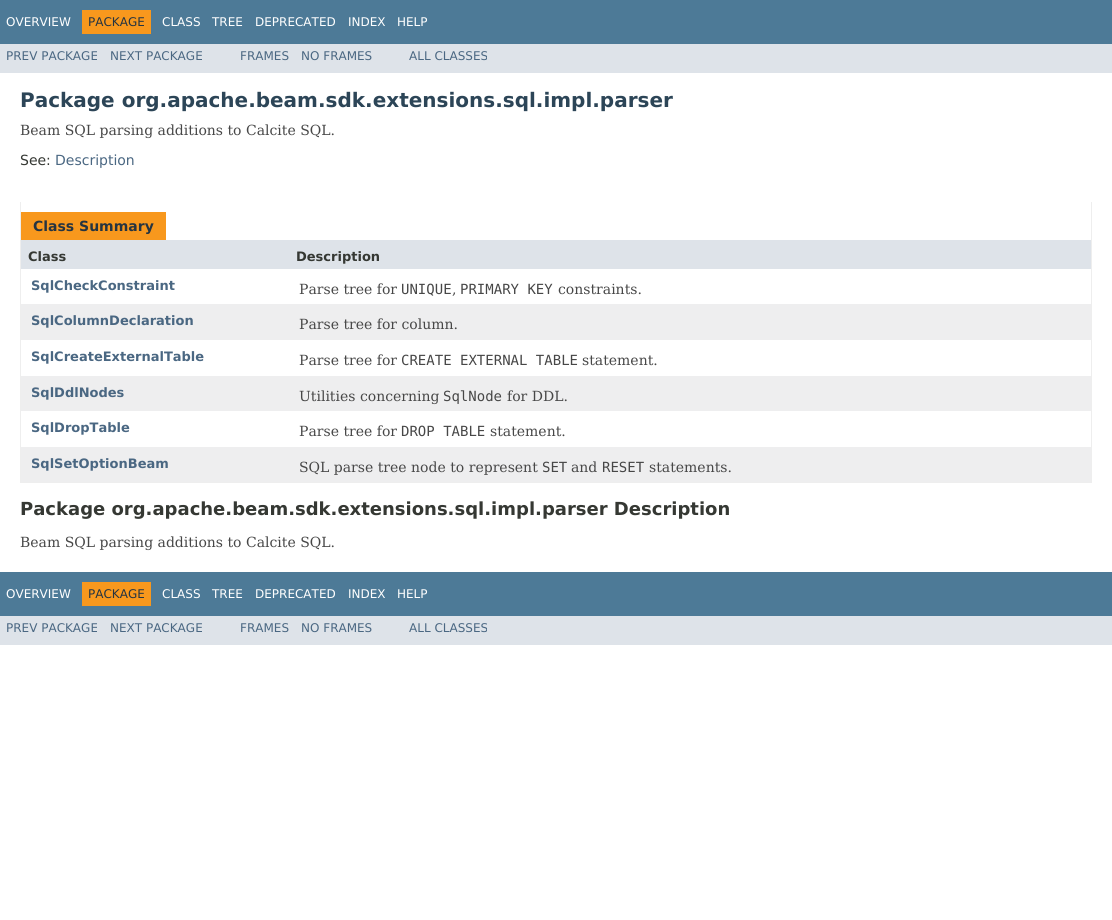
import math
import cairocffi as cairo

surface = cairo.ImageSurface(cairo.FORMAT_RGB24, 1112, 920)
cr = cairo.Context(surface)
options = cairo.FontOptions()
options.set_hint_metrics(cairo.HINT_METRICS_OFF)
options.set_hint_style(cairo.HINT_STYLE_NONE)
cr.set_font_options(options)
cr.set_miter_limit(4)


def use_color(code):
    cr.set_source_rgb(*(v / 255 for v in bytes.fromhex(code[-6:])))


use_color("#ffffff")
cr.paint()
use_color("#4d7a97")
cr.rectangle(0, 0, 1112, 44)
cr.fill()
cr.select_font_face("DejaVu Sans")
cr.set_font_size(12)
use_color("#ffffff")
cr.move_to(6, 26)
cr.show_text("OVERVIEW")
use_color("#f8981d")
cr.rectangle(82, 10, 69, 24)
cr.fill()
use_color("#253441")
cr.move_to(88, 26)
cr.show_text("PACKAGE")
use_color("#ffffff")
cr.move_to(162, 26)
cr.show_text("CLASS")
cr.move_to(212, 26)
cr.show_text("TREE")
cr.move_to(255, 26)
cr.show_text("DEPRECATED")
cr.move_to(348, 26)
cr.show_text("INDEX")
cr.move_to(397, 26)
cr.show_text("HELP")
use_color("#dee3e9")
cr.rectangle(0, 44, 1112, 29)
cr.fill()
use_color("#4a6782")
cr.move_to(6, 60)
cr.show_text("PREV PACKAGE")
cr.move_to(110, 60)
cr.show_text("NEXT PACKAGE")
cr.move_to(240, 60)
cr.show_text("FRAMES")
cr.move_to(301, 60)
cr.show_text("NO FRAMES")
cr.move_to(409, 60)
cr.show_text("ALL CLASSES")
cr.select_font_face("DejaVu Sans", cairo.FONT_SLANT_NORMAL, cairo.FONT_WEIGHT_BOLD)
cr.set_font_size(20)
use_color("#2c4557")
cr.move_to(20, 107)
cr.show_text("Package org.apache.beam.sdk.extensions.sql.impl.parser")
cr.select_font_face("DejaVu Serif")
cr.set_font_size(14)
use_color("#474747")
cr.move_to(20, 135)
cr.show_text("Beam SQL parsing additions to Calcite SQL.")
cr.select_font_face("DejaVu Sans")
use_color("#353833")
cr.move_to(20, 165)
cr.show_text("See:")
use_color("#4a6782")
cr.move_to(55, 165)
cr.show_text("Description")
use_color("#eeeeee")
cr.rectangle(1091, 202, 1, 281)
cr.fill()
cr.rectangle(20, 482, 1072, 1)
cr.fill()
cr.rectangle(20, 202, 1, 281)
cr.fill()
use_color("#f8981d")
cr.rectangle(21, 212, 145, 28)
cr.fill()
cr.select_font_face("DejaVu Sans", cairo.FONT_SLANT_NORMAL, cairo.FONT_WEIGHT_BOLD)
use_color("#253441")
cr.move_to(33, 231)
cr.show_text("Class Summary")
use_color("#dee3e9")
cr.rectangle(21, 240, 1070, 29)
cr.fill()
cr.set_font_size(13)
use_color("#353833")
cr.move_to(28, 261)
cr.show_text("Class")
cr.move_to(296, 261)
cr.show_text("Description")
use_color("#4a6782")
cr.move_to(31, 290)
cr.show_text("SqlCheckConstraint")
cr.select_font_face("DejaVu Serif")
cr.set_font_size(14)
use_color("#474747")
cr.move_to(299, 294)
cr.show_text("Parse tree for")
cr.select_font_face("DejaVu Sans Mono")
cr.move_to(401, 294)
cr.show_text("UNIQUE")
cr.select_font_face("DejaVu Serif")
cr.move_to(452, 294)
cr.show_text(",")
cr.select_font_face("DejaVu Sans Mono")
cr.move_to(460, 294)
cr.show_text("PRIMARY KEY")
cr.select_font_face("DejaVu Serif")
cr.move_to(558, 294)
cr.show_text("constraints.")
use_color("#eeeeef")
cr.rectangle(21, 304, 1070, 36)
cr.fill()
cr.select_font_face("DejaVu Sans", cairo.FONT_SLANT_NORMAL, cairo.FONT_WEIGHT_BOLD)
cr.set_font_size(13)
use_color("#4a6782")
cr.move_to(31, 325)
cr.show_text("SqlColumnDeclaration")
cr.select_font_face("DejaVu Serif")
cr.set_font_size(14)
use_color("#474747")
cr.move_to(299, 329)
cr.show_text("Parse tree for column.")
cr.select_font_face("DejaVu Sans", cairo.FONT_SLANT_NORMAL, cairo.FONT_WEIGHT_BOLD)
cr.set_font_size(13)
use_color("#4a6782")
cr.move_to(31, 361)
cr.show_text("SqlCreateExternalTable")
cr.select_font_face("DejaVu Serif")
cr.set_font_size(14)
use_color("#474747")
cr.move_to(299, 365)
cr.show_text("Parse tree for")
cr.select_font_face("DejaVu Sans Mono")
cr.move_to(401, 365)
cr.show_text("CREATE EXTERNAL TABLE")
cr.select_font_face("DejaVu Serif")
cr.move_to(582, 365)
cr.show_text("statement.")
use_color("#eeeeef")
cr.rectangle(21, 376, 1070, 35)
cr.fill()
cr.select_font_face("DejaVu Sans", cairo.FONT_SLANT_NORMAL, cairo.FONT_WEIGHT_BOLD)
cr.set_font_size(13)
use_color("#4a6782")
cr.move_to(31, 397)
cr.show_text("SqlDdlNodes")
cr.select_font_face("DejaVu Serif")
cr.set_font_size(14)
use_color("#474747")
cr.move_to(299, 401)
cr.show_text("Utilities concerning")
cr.select_font_face("DejaVu Sans Mono")
cr.move_to(443, 401)
cr.show_text("SqlNode")
cr.select_font_face("DejaVu Serif")
cr.move_to(507, 401)
cr.show_text("for DDL.")
cr.select_font_face("DejaVu Sans", cairo.FONT_SLANT_NORMAL, cairo.FONT_WEIGHT_BOLD)
cr.set_font_size(13)
use_color("#4a6782")
cr.move_to(31, 432)
cr.show_text("SqlDropTable")
cr.select_font_face("DejaVu Serif")
cr.set_font_size(14)
use_color("#474747")
cr.move_to(299, 436)
cr.show_text("Parse tree for")
cr.select_font_face("DejaVu Sans Mono")
cr.move_to(401, 436)
cr.show_text("DROP TABLE")
cr.select_font_face("DejaVu Serif")
cr.move_to(490, 436)
cr.show_text("statement.")
use_color("#eeeeef")
cr.rectangle(21, 447, 1070, 35)
cr.fill()
cr.select_font_face("DejaVu Sans", cairo.FONT_SLANT_NORMAL, cairo.FONT_WEIGHT_BOLD)
cr.set_font_size(13)
use_color("#4a6782")
cr.move_to(31, 468)
cr.show_text("SqlSetOptionBeam")
cr.select_font_face("DejaVu Serif")
cr.set_font_size(14)
use_color("#474747")
cr.move_to(299, 472)
cr.show_text("SQL parse tree node to represent")
cr.select_font_face("DejaVu Sans Mono")
cr.move_to(542, 472)
cr.show_text("SET")
cr.select_font_face("DejaVu Serif")
cr.move_to(571, 472)
cr.show_text("and")
cr.select_font_face("DejaVu Sans Mono")
cr.move_to(602, 472)
cr.show_text("RESET")
cr.select_font_face("DejaVu Serif")
cr.move_to(649, 472)
cr.show_text("statements.")
cr.select_font_face("DejaVu Sans", cairo.FONT_SLANT_NORMAL, cairo.FONT_WEIGHT_BOLD)
cr.set_font_size(18)
use_color("#353833")
cr.move_to(20, 515)
cr.show_text("Package org.apache.beam.sdk.extensions.sql.impl.parser Description")
cr.select_font_face("DejaVu Serif")
cr.set_font_size(14)
use_color("#474747")
cr.move_to(20, 547)
cr.show_text("Beam SQL parsing additions to Calcite SQL.")
use_color("#4d7a97")
cr.rectangle(0, 572, 1112, 44)
cr.fill()
cr.select_font_face("DejaVu Sans")
cr.set_font_size(12)
use_color("#ffffff")
cr.move_to(6, 598)
cr.show_text("OVERVIEW")
use_color("#f8981d")
cr.rectangle(82, 582, 69, 24)
cr.fill()
use_color("#253441")
cr.move_to(88, 598)
cr.show_text("PACKAGE")
use_color("#ffffff")
cr.move_to(162, 598)
cr.show_text("CLASS")
cr.move_to(212, 598)
cr.show_text("TREE")
cr.move_to(255, 598)
cr.show_text("DEPRECATED")
cr.move_to(348, 598)
cr.show_text("INDEX")
cr.move_to(397, 598)
cr.show_text("HELP")
use_color("#dee3e9")
cr.rectangle(0, 616, 1112, 29)
cr.fill()
use_color("#4a6782")
cr.move_to(6, 632)
cr.show_text("PREV PACKAGE")
cr.move_to(110, 632)
cr.show_text("NEXT PACKAGE")
cr.move_to(240, 632)
cr.show_text("FRAMES")
cr.move_to(301, 632)
cr.show_text("NO FRAMES")
cr.move_to(409, 632)
cr.show_text("ALL CLASSES")
surface.write_to_png("result.png")
